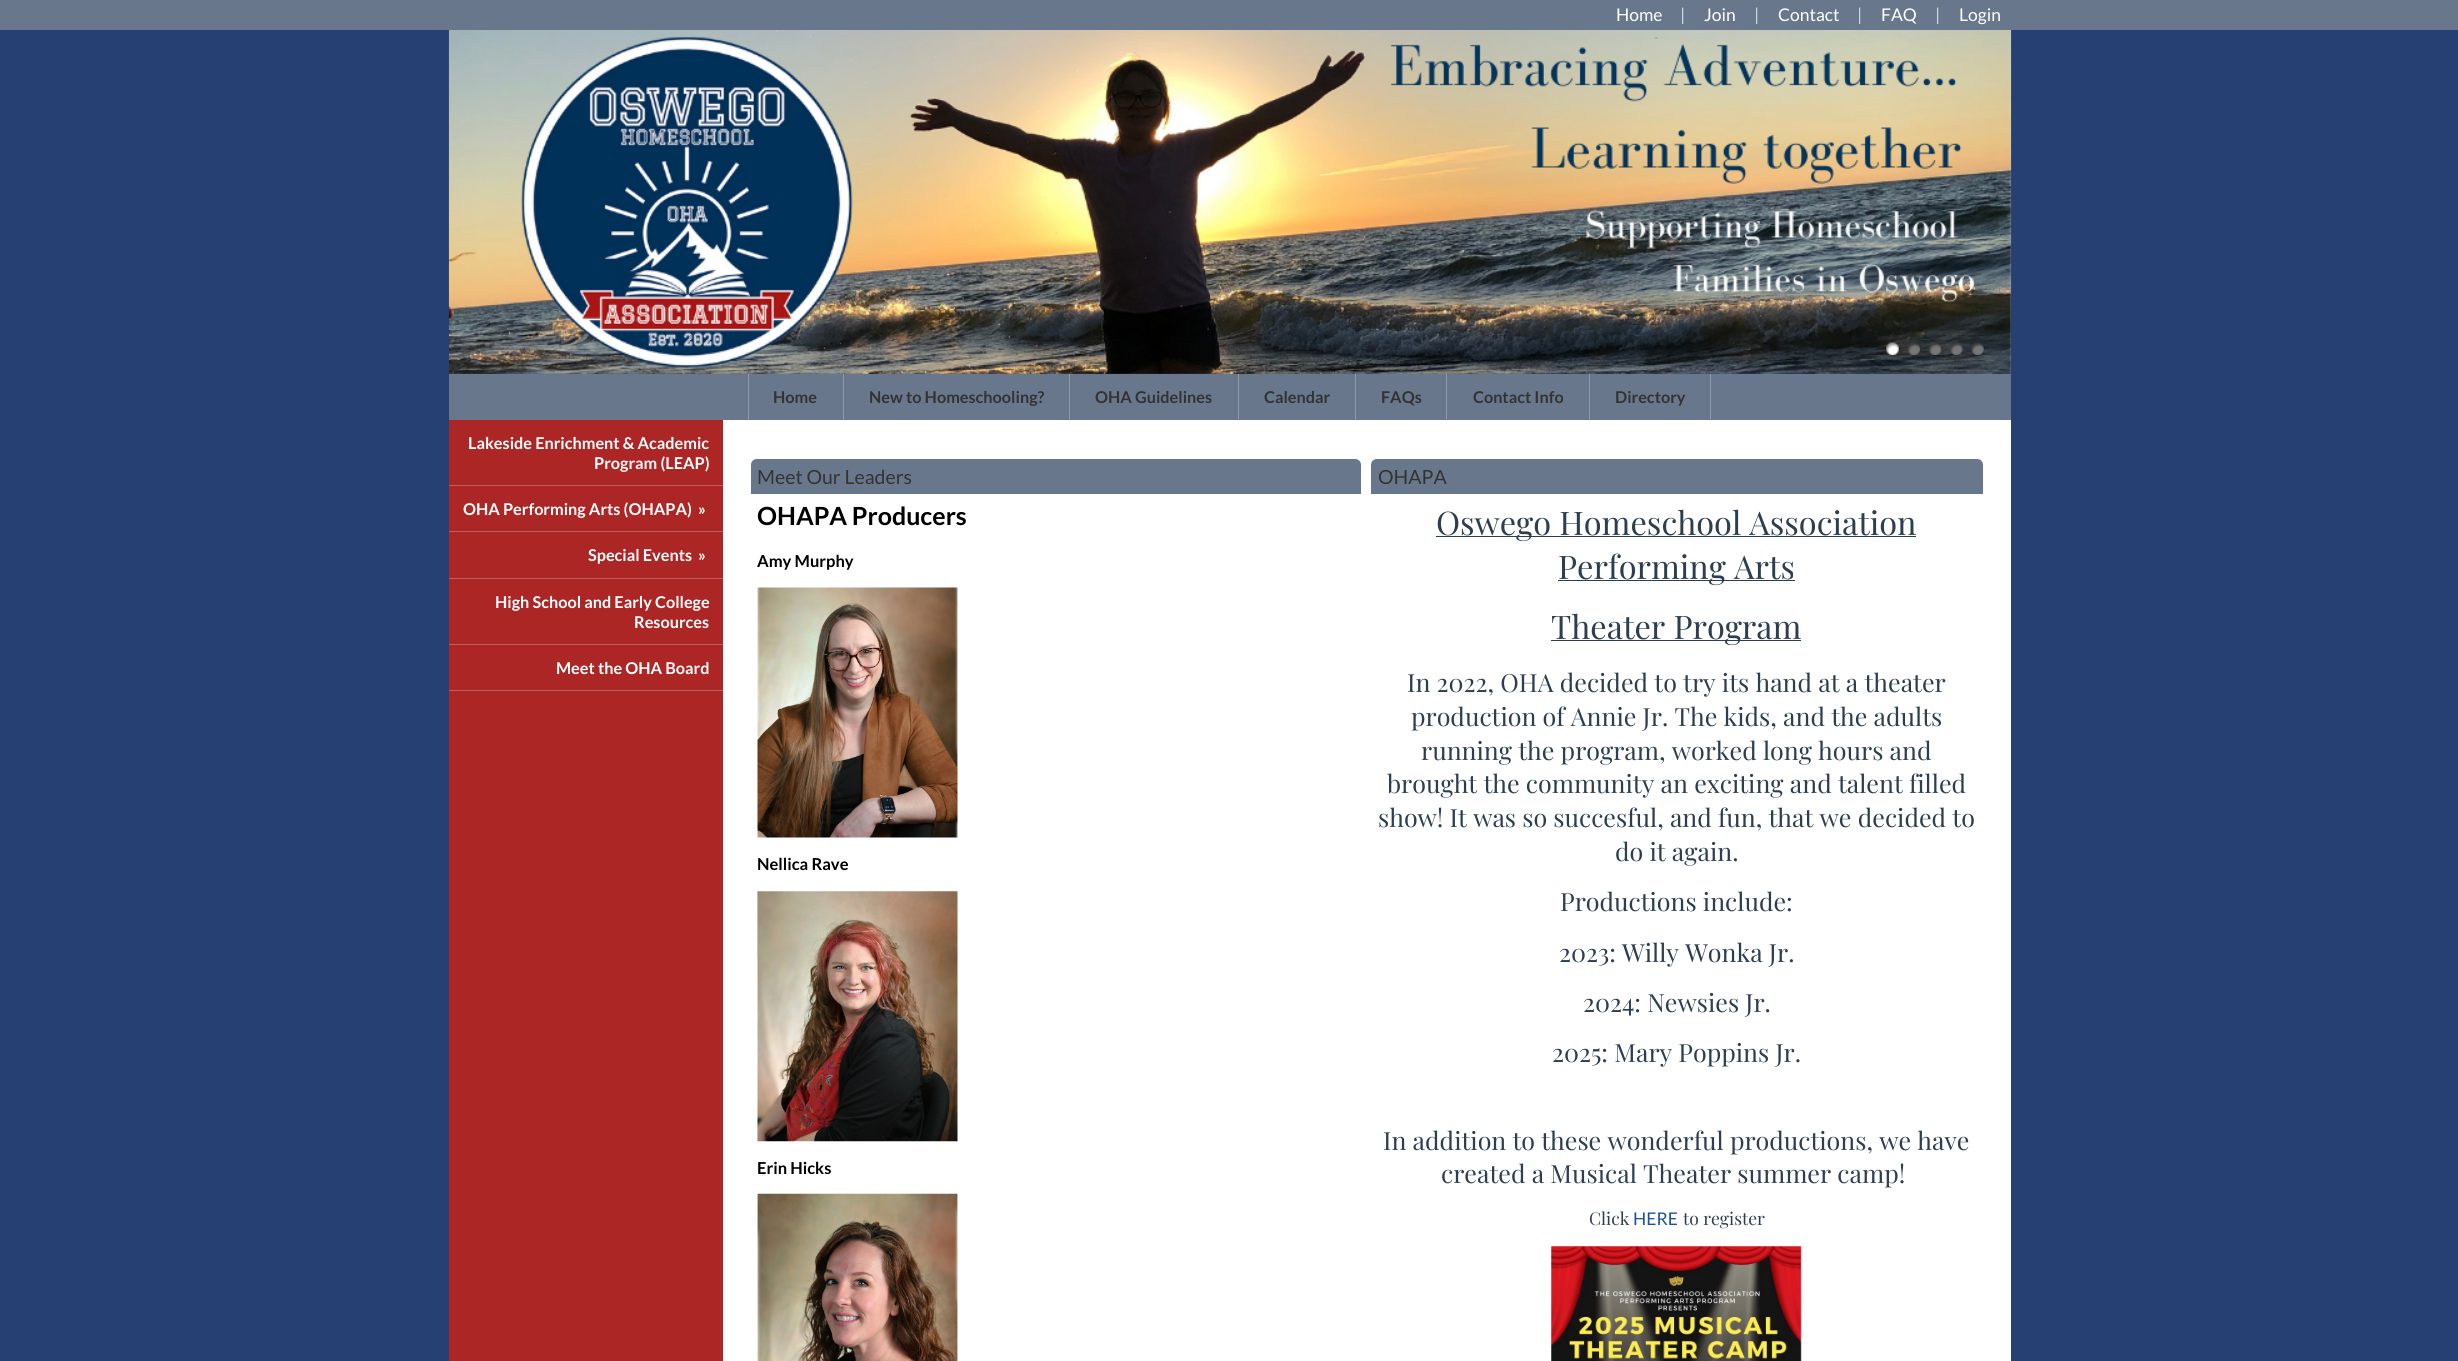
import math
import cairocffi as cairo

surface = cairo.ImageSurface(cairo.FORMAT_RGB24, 2458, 1361)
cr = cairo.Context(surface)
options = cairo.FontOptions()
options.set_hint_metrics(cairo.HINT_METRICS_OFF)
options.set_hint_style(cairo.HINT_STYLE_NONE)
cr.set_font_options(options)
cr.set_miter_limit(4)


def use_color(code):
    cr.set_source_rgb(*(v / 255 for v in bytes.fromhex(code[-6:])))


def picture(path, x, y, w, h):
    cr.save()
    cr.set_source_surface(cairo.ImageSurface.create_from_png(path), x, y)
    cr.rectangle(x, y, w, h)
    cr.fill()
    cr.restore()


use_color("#264073")
cr.paint()
use_color("#68778c")
cr.rectangle(0, 0, 2458, 30)
cr.fill()
cr.select_font_face("Lato")
cr.set_font_size(17.5)
use_color("#ffffff")
cr.move_to(1616, 21)
cr.show_text("Home")
use_color("#d2d6dd")
cr.move_to(1680, 21)
cr.show_text("|")
use_color("#ffffff")
cr.move_to(1704, 21)
cr.show_text("Join")
use_color("#d2d6dd")
cr.move_to(1754, 21)
cr.show_text("|")
use_color("#ffffff")
cr.move_to(1778, 21)
cr.show_text("Contact")
use_color("#d2d6dd")
cr.move_to(1857, 21)
cr.show_text("|")
use_color("#ffffff")
cr.move_to(1881, 21)
cr.show_text("FAQ")
use_color("#d2d6dd")
cr.move_to(1935, 21)
cr.show_text("|")
use_color("#ffffff")
cr.move_to(1959, 21)
cr.show_text("Login")
picture("img1.png", 448, 30, 1564, 344)
picture("img2.png", 1886, 342, 13, 13)
picture("img3.png", 1907, 342, 13, 13)
picture("img4.png", 1928, 342, 14, 13)
picture("img5.png", 1950, 342, 13, 13)
picture("img6.png", 1971, 342, 13, 13)
use_color("#68778c")
cr.rectangle(449, 374, 1562, 46)
cr.fill()
use_color("#8e99a9")
cr.rectangle(748, 374, 1, 46)
cr.fill()
cr.rectangle(843, 374, 1, 46)
cr.fill()
cr.select_font_face("Lato", cairo.FONT_SLANT_NORMAL, cairo.FONT_WEIGHT_BOLD)
cr.set_font_size(16.25)
use_color("#333333")
cr.move_to(773, 403)
cr.show_text("Home")
use_color("#8e99a9")
cr.rectangle(1069, 374, 1, 46)
cr.fill()
use_color("#333333")
cr.move_to(869, 403)
cr.show_text("New to Homeschooling?")
use_color("#8e99a9")
cr.rectangle(1238, 374, 1, 46)
cr.fill()
use_color("#333333")
cr.move_to(1095, 403)
cr.show_text("OHA Guidelines")
use_color("#8e99a9")
cr.rectangle(1355, 374, 1, 46)
cr.fill()
use_color("#333333")
cr.move_to(1264, 403)
cr.show_text("Calendar")
use_color("#8e99a9")
cr.rectangle(1446, 374, 1, 46)
cr.fill()
use_color("#333333")
cr.move_to(1381, 403)
cr.show_text("FAQs")
use_color("#8e99a9")
cr.rectangle(1589, 374, 1, 46)
cr.fill()
use_color("#333333")
cr.move_to(1473, 403)
cr.show_text("Contact Info")
use_color("#8e99a9")
cr.rectangle(1710, 374, 1, 46)
cr.fill()
use_color("#333333")
cr.move_to(1615, 403)
cr.show_text("Directory")
use_color("#ffffff")
cr.rectangle(723, 420, 1288, 941)
cr.fill()
use_color("#ad2626")
cr.rectangle(449, 420, 274, 941)
cr.fill()
use_color("#c25c5c")
cr.rectangle(449, 485, 274, 1)
cr.fill()
use_color("#ffffff")
cr.move_to(468, 449)
cr.show_text("Lakeside Enrichment & Academic")
cr.move_to(594, 469)
cr.show_text("Program (LEAP)")
use_color("#c25c5c")
cr.rectangle(449, 531, 274, 1)
cr.fill()
use_color("#ffffff")
cr.move_to(463, 515)
cr.show_text("OHA Performing Arts (OHAPA)")
cr.move_to(698, 515)
cr.show_text("»")
use_color("#c25c5c")
cr.rectangle(449, 578, 274, 1)
cr.fill()
use_color("#ffffff")
cr.move_to(588, 561)
cr.show_text("Special Events")
cr.move_to(698, 561)
cr.show_text("»")
use_color("#c25c5c")
cr.rectangle(449, 644, 274, 1)
cr.fill()
use_color("#ffffff")
cr.move_to(495, 608)
cr.show_text("High School and Early College")
cr.move_to(634, 628)
cr.show_text("Resources")
use_color("#c25c5c")
cr.rectangle(449, 690, 274, 1)
cr.fill()
use_color("#ffffff")
cr.move_to(556, 674)
cr.show_text("Meet the OHA Board")
use_color("#68778c")
cr.new_path()
cr.move_to(757, 459)
cr.line_to(1355, 459)
cr.curve_to(1358.5, 459, 1361, 461.5, 1361, 465)
cr.line_to(1361, 494)
cr.line_to(751, 494)
cr.line_to(751, 465)
cr.curve_to(751, 461.5, 753.5, 459, 757, 459)
cr.close_path()
cr.fill()
cr.select_font_face("Lato")
cr.set_font_size(19.5)
use_color("#333333")
cr.move_to(757, 484)
cr.show_text("Meet Our Leaders")
cr.select_font_face("Lato", cairo.FONT_SLANT_NORMAL, cairo.FONT_WEIGHT_BOLD)
cr.set_font_size(25)
use_color("#000000")
cr.move_to(757, 525)
cr.show_text("OHAPA Producers")
cr.set_font_size(16.5)
cr.move_to(757, 567)
cr.show_text("Amy Murphy")
picture("img7.png", 757, 587, 201, 251)
cr.move_to(757, 870)
cr.show_text("Nellica Rave")
picture("img8.png", 757, 891, 201, 251)
cr.move_to(757, 1174)
cr.show_text("Erin Hicks")
picture("img9.png", 757, 1193, 201, 168)
use_color("#68778c")
cr.new_path()
cr.move_to(1377, 459)
cr.line_to(1977, 459)
cr.curve_to(1980.5, 459, 1983, 461.5, 1983, 465)
cr.line_to(1983, 494)
cr.line_to(1371, 494)
cr.line_to(1371, 465)
cr.curve_to(1371, 461.5, 1373.5, 459, 1377, 459)
cr.close_path()
cr.fill()
cr.select_font_face("Lato")
cr.set_font_size(19.5)
use_color("#333333")
cr.move_to(1378, 484)
cr.show_text("OHAPA")
use_color("#2c3e50")
cr.rectangle(1436, 536, 480, 1)
cr.fill()
cr.select_font_face("Playfair Display")
cr.set_font_size(32.5)
cr.move_to(1436, 535)
cr.show_text("Oswego Homeschool Association")
cr.rectangle(1558, 580, 237, 1)
cr.fill()
cr.move_to(1558, 579)
cr.show_text("Performing Arts")
cr.rectangle(1551, 640, 250, 1)
cr.fill()
cr.move_to(1551, 639)
cr.show_text("Theater Program")
cr.set_font_size(25)
cr.move_to(1407, 692)
cr.show_text("In 2022, OHA decided to try its hand at a theater")
cr.move_to(1411, 726)
cr.show_text("production of Annie Jr. The kids, and the adults")
cr.move_to(1421, 760)
cr.show_text("running the program, worked long hours and")
cr.move_to(1387, 793)
cr.show_text("brought the community an exciting and talent filled")
cr.move_to(1378, 827)
cr.show_text("show! It was so succesful, and fun, that we decided to")
cr.move_to(1615, 861)
cr.show_text("do it again.")
cr.move_to(1560, 911)
cr.show_text("Productions include:")
cr.move_to(1559, 962)
cr.show_text("2023: Willy Wonka Jr.")
cr.move_to(1583, 1012)
cr.show_text("2024: Newsies Jr.")
cr.move_to(1552, 1062)
cr.show_text("2025: Mary Poppins Jr.")
cr.move_to(1383, 1150)
cr.show_text("In addition to these wonderful productions, we have")
cr.move_to(1441, 1183)
cr.show_text("created a Musical Theater summer camp!")
cr.set_font_size(17.5)
cr.move_to(1589, 1225)
cr.show_text("Click")
cr.select_font_face("Lato")
use_color("#1d519d")
cr.move_to(1633, 1225)
cr.show_text("HERE")
cr.select_font_face("Playfair Display")
use_color("#2c3e50")
cr.move_to(1683, 1225)
cr.show_text("to register")
picture("img10.png", 1551, 1246, 251, 115)
surface.write_to_png("result.png")
